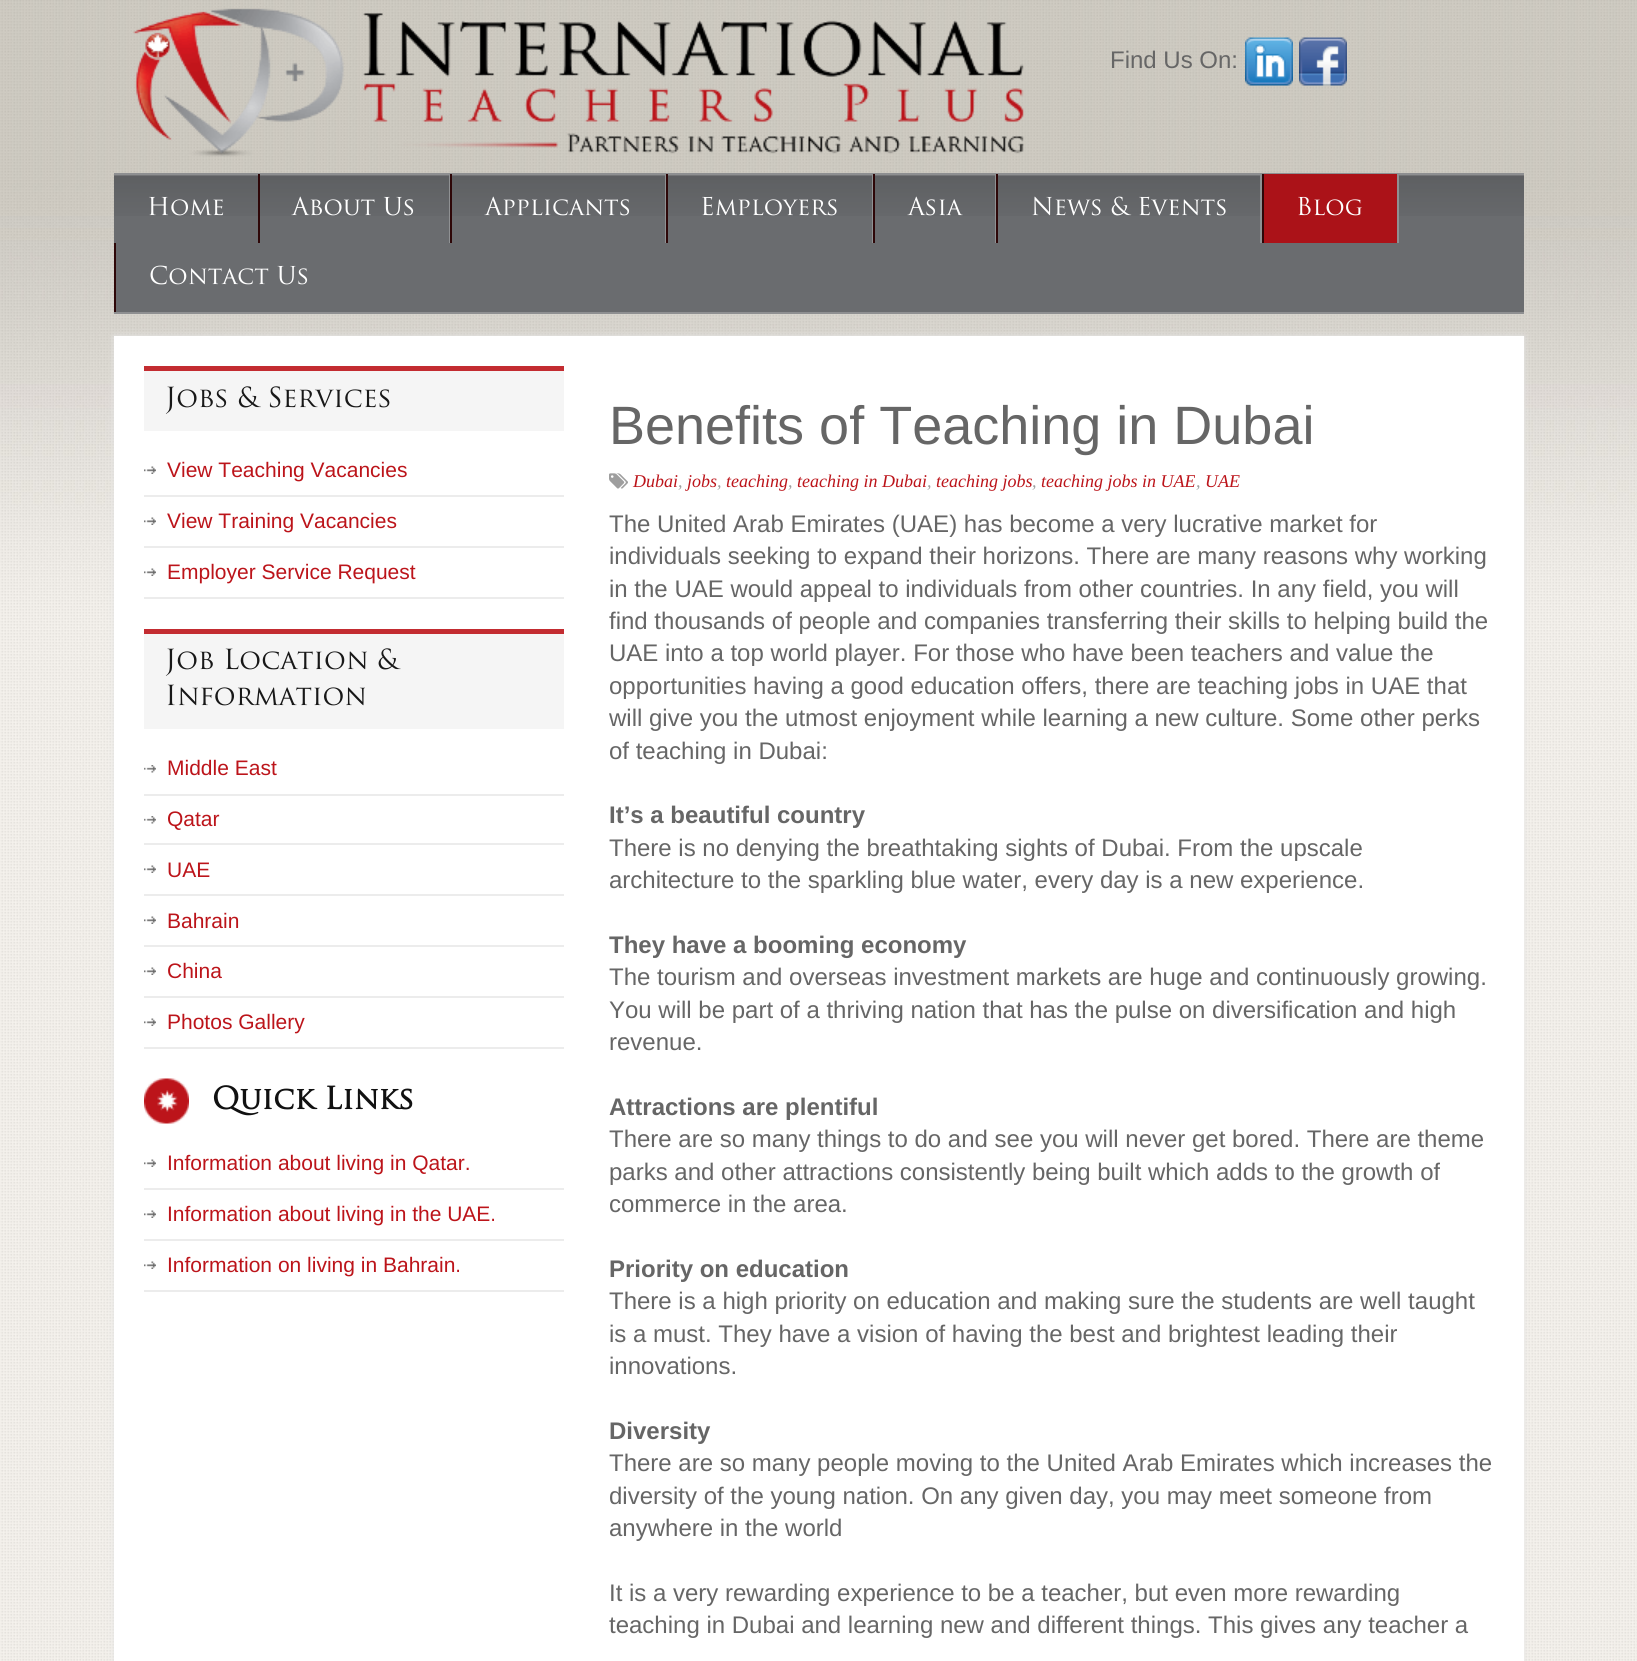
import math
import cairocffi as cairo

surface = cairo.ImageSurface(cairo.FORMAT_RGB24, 1637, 1661)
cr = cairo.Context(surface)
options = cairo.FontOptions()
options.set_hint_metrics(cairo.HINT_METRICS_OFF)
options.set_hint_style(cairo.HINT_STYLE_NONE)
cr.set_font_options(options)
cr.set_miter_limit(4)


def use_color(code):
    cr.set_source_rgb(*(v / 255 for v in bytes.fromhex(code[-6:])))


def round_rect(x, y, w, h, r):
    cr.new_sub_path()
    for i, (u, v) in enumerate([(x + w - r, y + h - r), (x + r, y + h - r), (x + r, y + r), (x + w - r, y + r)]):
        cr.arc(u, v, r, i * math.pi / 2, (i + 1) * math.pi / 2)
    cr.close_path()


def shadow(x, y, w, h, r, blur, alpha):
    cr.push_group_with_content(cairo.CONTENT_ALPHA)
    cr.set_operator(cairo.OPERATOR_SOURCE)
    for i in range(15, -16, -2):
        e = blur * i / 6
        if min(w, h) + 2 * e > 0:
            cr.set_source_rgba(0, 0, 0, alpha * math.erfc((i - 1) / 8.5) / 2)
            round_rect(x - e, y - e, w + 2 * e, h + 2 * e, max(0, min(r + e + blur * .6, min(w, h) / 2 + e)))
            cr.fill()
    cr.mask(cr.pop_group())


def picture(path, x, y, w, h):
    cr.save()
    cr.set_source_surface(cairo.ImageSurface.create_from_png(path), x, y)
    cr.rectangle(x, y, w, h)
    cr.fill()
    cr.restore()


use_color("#ffffff")
cr.paint()
picture("img1.png", 0, 0, 1637, 1661)
picture("img2.png", 133, 8, 891, 149)
cr.select_font_face("Liberation Sans")
cr.set_font_size(24)
use_color("#666666")
cr.move_to(1110, 68)
cr.show_text("Find Us On:")
picture("img3.png", 1245, 37, 48, 49)
picture("img4.png", 1299, 37, 48, 49)
use_color("#6a6c6f")
cr.rectangle(114, 175, 1410, 137)
cr.fill()
picture("img5.png", 114, 175, 1410, 41)
use_color("#8e8f91")
cr.rectangle(114, 173, 1410, 2)
cr.fill()
cr.rectangle(114, 312, 1410, 2)
cr.fill()
cr.select_font_face("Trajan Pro")
use_color("#ffffff")
cr.move_to(147, 215)
cr.show_text("Home")
use_color("#8f9193")
cr.rectangle(449, 174, 1, 69)
cr.fill()
use_color("#2e0708")
cr.rectangle(258, 174, 2, 69)
cr.fill()
use_color("#ffffff")
cr.move_to(292, 215)
cr.show_text("About Us")
use_color("#8f9193")
cr.rectangle(665, 174, 1, 69)
cr.fill()
use_color("#2e0708")
cr.rectangle(450, 174, 2, 69)
cr.fill()
use_color("#ffffff")
cr.move_to(485, 215)
cr.show_text("Applicants")
use_color("#8f9193")
cr.rectangle(872, 174, 1, 69)
cr.fill()
use_color("#2e0708")
cr.rectangle(666, 174, 2, 69)
cr.fill()
use_color("#ffffff")
cr.move_to(700, 215)
cr.show_text("Employers")
use_color("#8f9193")
cr.rectangle(995, 174, 1, 69)
cr.fill()
use_color("#2e0708")
cr.rectangle(873, 174, 2, 69)
cr.fill()
use_color("#ffffff")
cr.move_to(908, 215)
cr.show_text("Asia")
use_color("#8f9193")
cr.rectangle(1260, 174, 2, 69)
cr.fill()
use_color("#2e0708")
cr.rectangle(996, 174, 2, 69)
cr.fill()
use_color("#ffffff")
cr.move_to(1031, 215)
cr.show_text("News & Events")
use_color("#ab1218")
cr.rectangle(1264, 174, 133, 69)
cr.fill()
use_color("#8f9193")
cr.rectangle(1397, 174, 2, 69)
cr.fill()
use_color("#2e0708")
cr.rectangle(1262, 174, 2, 69)
cr.fill()
use_color("#ffffff")
cr.move_to(1296, 215)
cr.show_text("Blog")
use_color("#2e0708")
cr.rectangle(114, 243, 2, 69)
cr.fill()
use_color("#ffffff")
cr.move_to(149, 284)
cr.show_text("Contact Us")
use_color("#e5e5e5")
shadow(114, 336, 1410, 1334, 0, 3, 1)
use_color("#ffffff")
cr.rectangle(114, 336, 1410, 1325)
cr.fill()
use_color("#f5f5f5")
cr.rectangle(144, 371, 420, 60)
cr.fill()
use_color("#c32c31")
cr.rectangle(144, 366, 420, 5)
cr.fill()
cr.set_font_size(27)
use_color("#181818")
cr.move_to(165, 407)
cr.show_text("Jobs & Services")
picture("img6.png", 144, 466, 12, 8)
use_color("#ececec")
cr.rectangle(144, 495, 420, 2)
cr.fill()
cr.select_font_face("Liberation Sans")
cr.set_font_size(21)
use_color("#bc141a")
cr.move_to(167, 477)
cr.show_text("View Teaching Vacancies")
picture("img6.png", 144, 517, 12, 8)
use_color("#ececec")
cr.rectangle(144, 546, 420, 2)
cr.fill()
use_color("#bc141a")
cr.move_to(167, 528)
cr.show_text("View Training Vacancies")
picture("img6.png", 144, 568, 12, 8)
use_color("#ececec")
cr.rectangle(144, 597, 420, 2)
cr.fill()
use_color("#bc141a")
cr.move_to(167, 579)
cr.show_text("Employer Service Request")
use_color("#f5f5f5")
cr.rectangle(144, 634, 420, 95)
cr.fill()
use_color("#c32c31")
cr.rectangle(144, 629, 420, 5)
cr.fill()
cr.select_font_face("Trajan Pro")
cr.set_font_size(27)
use_color("#181818")
cr.move_to(165, 669)
cr.show_text("Job Location &")
cr.move_to(165, 705)
cr.show_text("Information")
picture("img7.png", 144, 765, 12, 8)
use_color("#ececec")
cr.rectangle(144, 794, 420, 2)
cr.fill()
cr.select_font_face("Liberation Sans")
cr.set_font_size(21)
use_color("#bc141a")
cr.move_to(167, 775)
cr.show_text("Middle East")
picture("img7.png", 144, 816, 12, 8)
use_color("#ececec")
cr.rectangle(144, 843, 420, 2)
cr.fill()
use_color("#bc141a")
cr.move_to(167, 826)
cr.show_text("Qatar")
picture("img6.png", 144, 865, 12, 8)
use_color("#ececec")
cr.rectangle(144, 894, 420, 2)
cr.fill()
use_color("#bc141a")
cr.move_to(167, 877)
cr.show_text("UAE")
picture("img6.png", 144, 916, 12, 8)
use_color("#ececec")
cr.rectangle(144, 945, 420, 2)
cr.fill()
use_color("#bc141a")
cr.move_to(167, 928)
cr.show_text("Bahrain")
picture("img6.png", 144, 967, 12, 8)
use_color("#ececec")
cr.rectangle(144, 996, 420, 2)
cr.fill()
use_color("#bc141a")
cr.move_to(167, 978)
cr.show_text("China")
picture("img6.png", 144, 1018, 12, 8)
use_color("#ececec")
cr.rectangle(144, 1047, 420, 2)
cr.fill()
use_color("#bc141a")
cr.move_to(167, 1029)
cr.show_text("Photos Gallery")
picture("img8.png", 144, 1078, 45, 46)
cr.select_font_face("Trajan Pro", cairo.FONT_SLANT_NORMAL, cairo.FONT_WEIGHT_BOLD)
cr.set_font_size(30)
use_color("#111111")
cr.move_to(212, 1109)
cr.show_text("Quick Links")
picture("img6.png", 144, 1159, 12, 8)
use_color("#ececec")
cr.rectangle(144, 1188, 420, 2)
cr.fill()
cr.select_font_face("Liberation Sans")
cr.set_font_size(21)
use_color("#bc141a")
cr.move_to(167, 1170)
cr.show_text("Information about living in Qatar.")
picture("img6.png", 144, 1210, 12, 8)
use_color("#ececec")
cr.rectangle(144, 1239, 420, 2)
cr.fill()
use_color("#bc141a")
cr.move_to(167, 1221)
cr.show_text("Information about living in the UAE.")
picture("img6.png", 144, 1261, 12, 8)
use_color("#ececec")
cr.rectangle(144, 1290, 420, 2)
cr.fill()
use_color("#bc141a")
cr.move_to(167, 1272)
cr.show_text("Information on living in Bahrain.")
cr.set_font_size(54)
use_color("#666666")
cr.move_to(609, 444)
cr.show_text("Benefits of Teaching in Dubai")
picture("img9.png", 609, 473, 19, 16)
cr.select_font_face("Liberation Serif", cairo.FONT_SLANT_ITALIC)
cr.set_font_size(18)
use_color("#bc141a")
cr.move_to(633, 487)
cr.show_text("Dubai")
use_color("#9e9e9e")
cr.move_to(678, 487)
cr.show_text(",")
use_color("#bc141a")
cr.move_to(687, 487)
cr.show_text("jobs")
use_color("#9e9e9e")
cr.move_to(717, 487)
cr.show_text(",")
use_color("#bc141a")
cr.move_to(726, 487)
cr.show_text("teaching")
use_color("#9e9e9e")
cr.move_to(788, 487)
cr.show_text(",")
use_color("#bc141a")
cr.move_to(797, 487)
cr.show_text("teaching in Dubai")
use_color("#9e9e9e")
cr.move_to(927, 487)
cr.show_text(",")
use_color("#bc141a")
cr.move_to(936, 487)
cr.show_text("teaching jobs")
use_color("#9e9e9e")
cr.move_to(1032, 487)
cr.show_text(",")
use_color("#bc141a")
cr.move_to(1041, 487)
cr.show_text("teaching jobs in UAE")
use_color("#9e9e9e")
cr.move_to(1196, 487)
cr.show_text(",")
use_color("#bc141a")
cr.move_to(1205, 487)
cr.show_text("UAE")
cr.select_font_face("Liberation Sans")
cr.set_font_size(24)
use_color("#666666")
cr.move_to(609, 532)
cr.show_text("The United Arab Emirates (UAE) has become a very lucrative market for")
cr.move_to(609, 564)
cr.show_text("individuals seeking to expand their horizons. There are many reasons why working")
cr.move_to(609, 597)
cr.show_text("in the UAE would appeal to individuals from other countries. In any field, you will")
cr.move_to(609, 629)
cr.show_text("find thousands of people and companies transferring their skills to helping build the")
cr.move_to(609, 661)
cr.show_text("UAE into a top world player. For those who have been teachers and value the")
cr.move_to(609, 694)
cr.show_text("opportunities having a good education offers, there are teaching jobs in UAE that")
cr.move_to(609, 726)
cr.show_text("will give you the utmost enjoyment while learning a new culture. Some other perks")
cr.move_to(609, 759)
cr.show_text("of teaching in Dubai:")
cr.select_font_face("Liberation Sans", cairo.FONT_SLANT_NORMAL, cairo.FONT_WEIGHT_BOLD)
cr.move_to(609, 823)
cr.show_text("It’s a beautiful country")
cr.select_font_face("Liberation Sans")
cr.move_to(609, 856)
cr.show_text("There is no denying the breathtaking sights of Dubai. From the upscale")
cr.move_to(609, 888)
cr.show_text("architecture to the sparkling blue water, every day is a new experience.")
cr.select_font_face("Liberation Sans", cairo.FONT_SLANT_NORMAL, cairo.FONT_WEIGHT_BOLD)
cr.move_to(609, 953)
cr.show_text("They have a booming economy")
cr.select_font_face("Liberation Sans")
cr.move_to(609, 985)
cr.show_text("The tourism and overseas investment markets are huge and continuously growing.")
cr.move_to(609, 1018)
cr.show_text("You will be part of a thriving nation that has the pulse on diversification and high")
cr.move_to(609, 1050)
cr.show_text("revenue.")
cr.select_font_face("Liberation Sans", cairo.FONT_SLANT_NORMAL, cairo.FONT_WEIGHT_BOLD)
cr.move_to(609, 1115)
cr.show_text("Attractions are plentiful")
cr.select_font_face("Liberation Sans")
cr.move_to(609, 1147)
cr.show_text("There are so many things to do and see you will never get bored. There are theme")
cr.move_to(609, 1180)
cr.show_text("parks and other attractions consistently being built which adds to the growth of")
cr.move_to(609, 1212)
cr.show_text("commerce in the area.")
cr.select_font_face("Liberation Sans", cairo.FONT_SLANT_NORMAL, cairo.FONT_WEIGHT_BOLD)
cr.move_to(609, 1277)
cr.show_text("Priority on education")
cr.select_font_face("Liberation Sans")
cr.move_to(609, 1309)
cr.show_text("There is a high priority on education and making sure the students are well taught")
cr.move_to(609, 1342)
cr.show_text("is a must. They have a vision of having the best and brightest leading their")
cr.move_to(609, 1374)
cr.show_text("innovations.")
cr.select_font_face("Liberation Sans", cairo.FONT_SLANT_NORMAL, cairo.FONT_WEIGHT_BOLD)
cr.move_to(609, 1439)
cr.show_text("Diversity")
cr.select_font_face("Liberation Sans")
cr.move_to(609, 1471)
cr.show_text("There are so many people moving to the United Arab Emirates which increases the")
cr.move_to(609, 1504)
cr.show_text("diversity of the young nation. On any given day, you may meet someone from")
cr.move_to(609, 1536)
cr.show_text("anywhere in the world")
cr.move_to(609, 1601)
cr.show_text("It is a very rewarding experience to be a teacher, but even more rewarding")
cr.move_to(609, 1633)
cr.show_text("teaching in Dubai and learning new and different things. This gives any teacher a")
surface.write_to_png("result.png")
